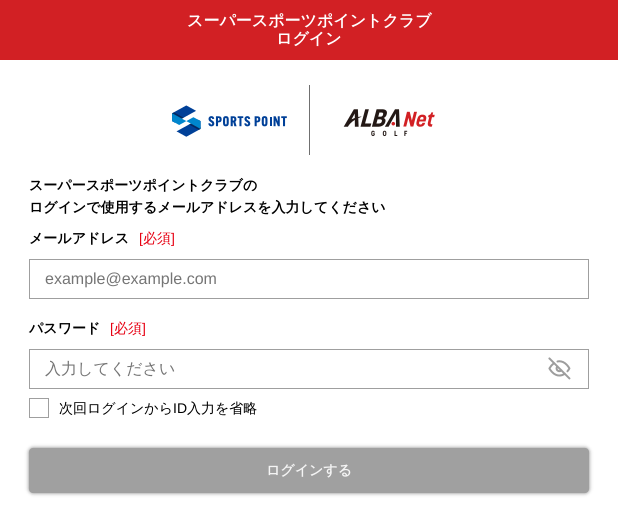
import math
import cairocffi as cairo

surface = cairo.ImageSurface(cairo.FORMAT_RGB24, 618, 509)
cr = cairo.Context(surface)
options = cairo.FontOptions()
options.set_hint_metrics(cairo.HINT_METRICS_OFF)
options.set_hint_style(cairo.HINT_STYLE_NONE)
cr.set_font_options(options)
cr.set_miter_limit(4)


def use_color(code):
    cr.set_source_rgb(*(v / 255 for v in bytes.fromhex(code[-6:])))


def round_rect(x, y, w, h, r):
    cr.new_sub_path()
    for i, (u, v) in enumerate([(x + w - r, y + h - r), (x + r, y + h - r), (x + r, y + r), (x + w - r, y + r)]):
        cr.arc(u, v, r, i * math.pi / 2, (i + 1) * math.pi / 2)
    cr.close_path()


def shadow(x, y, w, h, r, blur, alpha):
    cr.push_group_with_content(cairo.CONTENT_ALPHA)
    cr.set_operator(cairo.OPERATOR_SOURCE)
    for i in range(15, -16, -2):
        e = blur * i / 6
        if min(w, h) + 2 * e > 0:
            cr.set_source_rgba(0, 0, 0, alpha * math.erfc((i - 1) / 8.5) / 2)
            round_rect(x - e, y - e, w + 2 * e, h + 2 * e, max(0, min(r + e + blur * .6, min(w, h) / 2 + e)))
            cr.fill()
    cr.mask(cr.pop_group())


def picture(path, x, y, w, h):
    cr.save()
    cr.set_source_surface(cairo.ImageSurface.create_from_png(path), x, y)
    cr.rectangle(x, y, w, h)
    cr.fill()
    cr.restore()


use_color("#ffffff")
cr.paint()
use_color("#d22024")
cr.rectangle(0, 0, 618, 60)
cr.fill()
cr.select_font_face("WenQuanYi Zen Hei", cairo.FONT_SLANT_NORMAL, cairo.FONT_WEIGHT_BOLD)
cr.set_font_size(16)
use_color("#ffffff")
cr.move_to(187, 26)
cr.show_text("スーパースポーツポイントクラブ")
cr.move_to(276, 44)
cr.show_text("ログイン")
picture("img1.png", 172, 105, 115, 32)
use_color("#707070")
cr.rectangle(309, 85, 1, 70)
cr.fill()
picture("img2.png", 343, 109, 92, 28)
cr.set_font_size(14)
use_color("#000000")
cr.move_to(29, 190)
cr.show_text("スーパースポーツポイントクラブの")
cr.move_to(29, 212)
cr.show_text("ログインで使用するメールアドレスを入力してください")
cr.move_to(29, 243)
cr.show_text("メールアドレス")
cr.select_font_face("Liberation Sans")
use_color("#e60012")
cr.move_to(139, 243)
cr.show_text("[")
cr.select_font_face("WenQuanYi Zen Hei Medium")
cr.move_to(143, 243)
cr.show_text("必須")
cr.select_font_face("Liberation Sans")
cr.move_to(171, 243)
cr.show_text("]")
cr.rectangle(29.5, 259.5, 559, 39)
use_color("#9f9f9f")
cr.set_line_width(1)
cr.stroke()
cr.set_font_size(16)
use_color("#757575")
cr.move_to(45, 284)
cr.show_text("example@example.com")
cr.select_font_face("WenQuanYi Zen Hei", cairo.FONT_SLANT_NORMAL, cairo.FONT_WEIGHT_BOLD)
cr.set_font_size(14)
use_color("#000000")
cr.move_to(29, 333)
cr.show_text("パスワード")
cr.select_font_face("Liberation Sans")
use_color("#e60012")
cr.move_to(110, 333)
cr.show_text("[")
cr.select_font_face("WenQuanYi Zen Hei Medium")
cr.move_to(114, 333)
cr.show_text("必須")
cr.select_font_face("Liberation Sans")
cr.move_to(142, 333)
cr.show_text("]")
cr.rectangle(29.5, 349.5, 559, 39)
use_color("#9f9f9f")
cr.stroke()
cr.select_font_face("WenQuanYi Zen Hei Medium")
cr.set_font_size(16)
use_color("#757575")
cr.move_to(45, 374)
cr.show_text("入力してください")
picture("img3.png", 548, 357, 23, 23)
cr.rectangle(29.5, 398.5, 19, 19)
use_color("#9f9f9f")
cr.stroke()
cr.set_font_size(14)
use_color("#000000")
cr.move_to(59, 413)
cr.show_text("次回ログインから")
cr.select_font_face("Liberation Sans")
cr.move_to(173, 413)
cr.show_text("ID")
cr.select_font_face("WenQuanYi Zen Hei Medium")
cr.move_to(187, 413)
cr.show_text("入力を省略")
use_color("#000000")
shadow(29, 448, 560, 45, 4, 2, 0.5)
use_color("#a0a0a0")
round_rect(29, 448, 560, 45, 4)
cr.fill()
cr.select_font_face("WenQuanYi Zen Hei", cairo.FONT_SLANT_NORMAL, cairo.FONT_WEIGHT_BOLD)
use_color("#f4f4f4")
cr.move_to(266, 475)
cr.show_text("ログインする")
surface.write_to_png("result.png")
